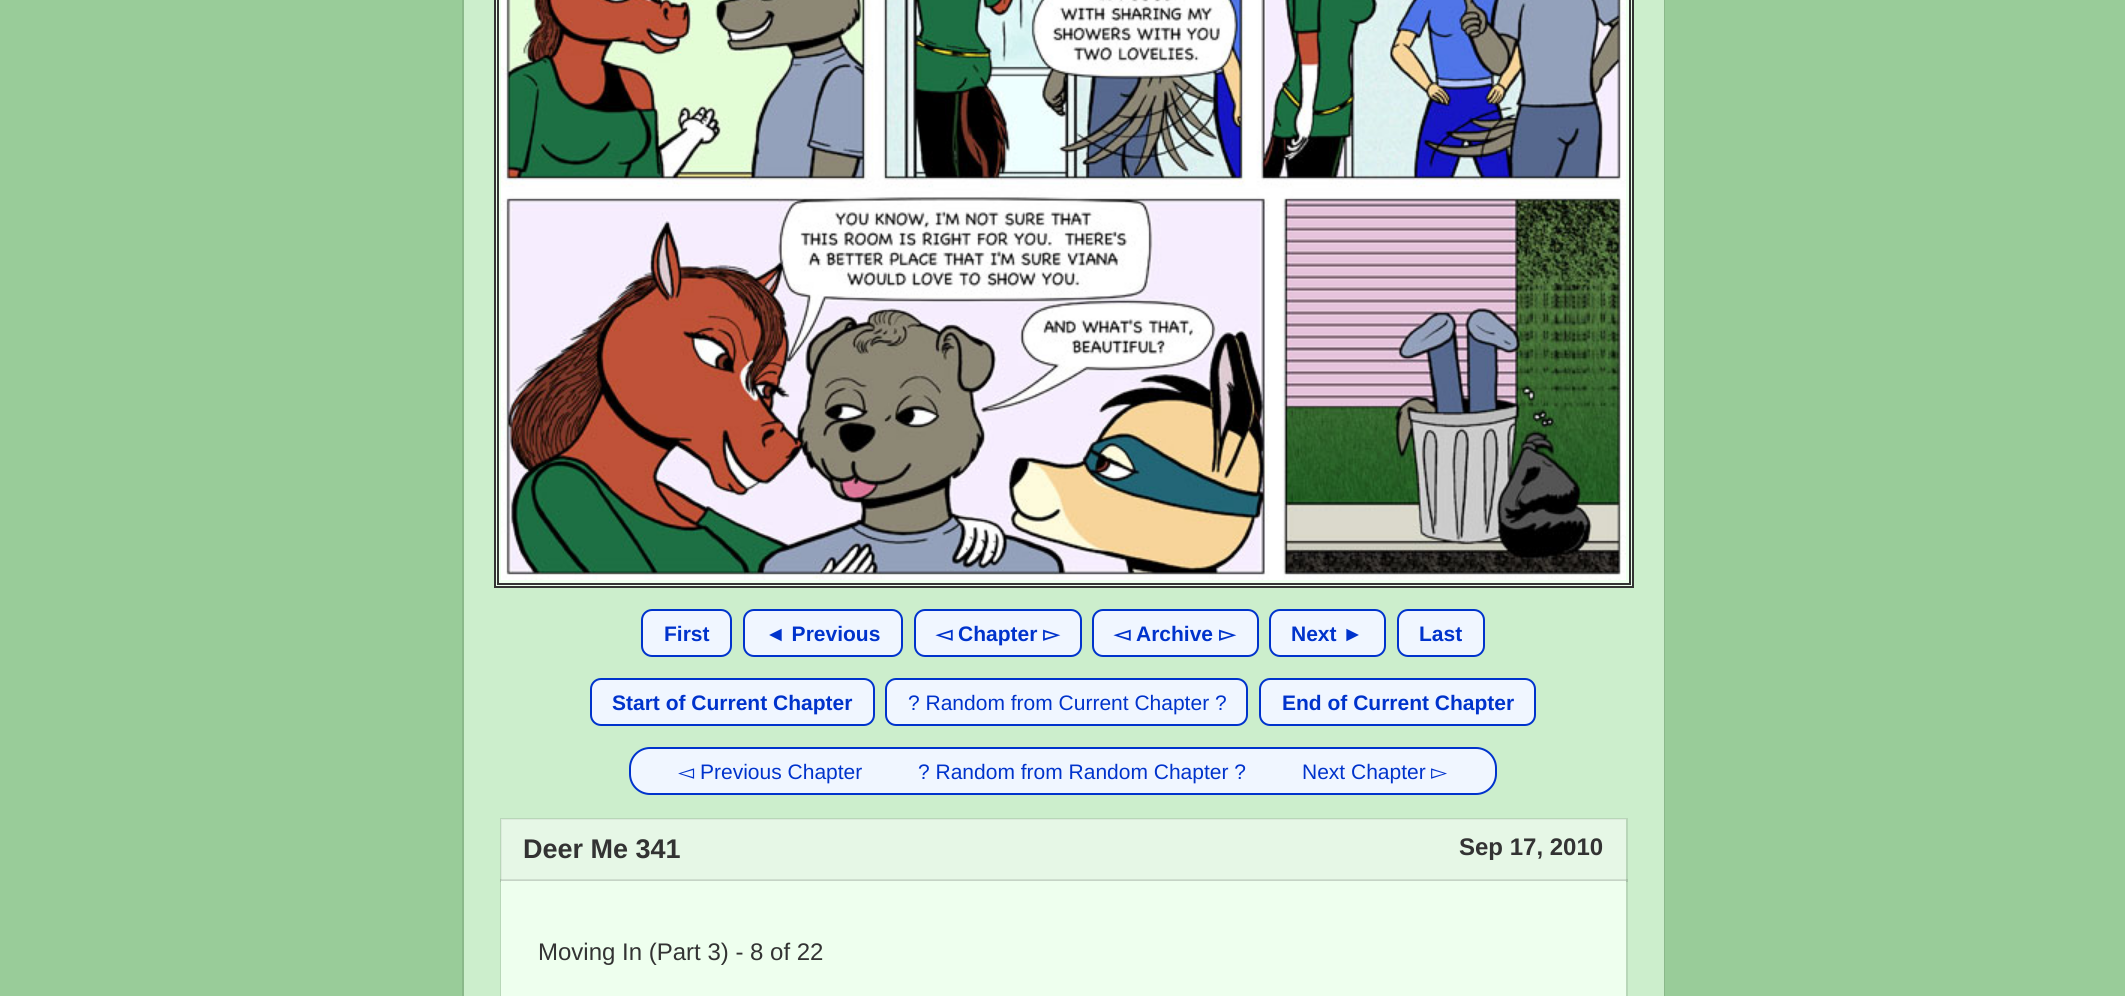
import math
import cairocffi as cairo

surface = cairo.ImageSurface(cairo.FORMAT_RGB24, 2125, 996)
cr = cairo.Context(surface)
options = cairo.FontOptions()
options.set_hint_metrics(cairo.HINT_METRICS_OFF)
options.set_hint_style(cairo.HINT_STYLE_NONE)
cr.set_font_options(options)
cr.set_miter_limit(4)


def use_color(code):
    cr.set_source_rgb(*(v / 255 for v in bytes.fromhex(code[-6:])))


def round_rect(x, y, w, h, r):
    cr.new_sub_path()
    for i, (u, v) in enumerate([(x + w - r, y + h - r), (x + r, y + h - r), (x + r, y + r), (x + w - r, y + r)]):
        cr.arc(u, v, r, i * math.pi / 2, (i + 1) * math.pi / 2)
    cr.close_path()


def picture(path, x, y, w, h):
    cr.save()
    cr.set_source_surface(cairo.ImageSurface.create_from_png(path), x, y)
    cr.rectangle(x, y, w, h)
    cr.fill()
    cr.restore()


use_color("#99cc99")
cr.paint()
cr.rectangle(463, -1, 1201, 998)
use_color("#8ab88a")
cr.stroke()
use_color("#cceecc")
cr.rectangle(464, 0, 1200, 996)
cr.fill()
use_color("#eeffee")
cr.rectangle(495, -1, 1138, 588)
cr.fill_preserve()
use_color("#333333")
cr.stroke()
cr.rectangle(498, -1, 1132, 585)
cr.stroke()
picture("img1.png", 501, 0, 1125, 580)
use_color("#f0f6ff")
round_rect(642, 610, 89, 46, 10)
cr.fill_preserve()
use_color("#0033cc")
cr.stroke()
cr.select_font_face("Liberation Sans", cairo.FONT_SLANT_NORMAL, cairo.FONT_WEIGHT_BOLD)
cr.set_font_size(21)
cr.move_to(664, 641)
cr.show_text("First")
use_color("#f0f6ff")
round_rect(744, 610, 158, 46, 10)
cr.fill_preserve()
use_color("#0033cc")
cr.stroke()
cr.move_to(765, 641)
cr.show_text("◄ Previous")
use_color("#f0f6ff")
round_rect(915, 610, 166, 46, 10)
cr.fill_preserve()
use_color("#0033cc")
cr.stroke()
cr.select_font_face("DejaVu Sans", cairo.FONT_SLANT_NORMAL, cairo.FONT_WEIGHT_BOLD)
cr.move_to(936, 641)
cr.show_text("◅")
cr.select_font_face("Liberation Sans", cairo.FONT_SLANT_NORMAL, cairo.FONT_WEIGHT_BOLD)
cr.move_to(958, 641)
cr.show_text("Chapter")
cr.select_font_face("DejaVu Sans", cairo.FONT_SLANT_NORMAL, cairo.FONT_WEIGHT_BOLD)
cr.move_to(1043, 641)
cr.show_text("▻")
use_color("#f0f6ff")
round_rect(1093, 610, 165, 46, 10)
cr.fill_preserve()
use_color("#0033cc")
cr.stroke()
cr.move_to(1114, 641)
cr.show_text("◅")
cr.select_font_face("Liberation Sans", cairo.FONT_SLANT_NORMAL, cairo.FONT_WEIGHT_BOLD)
cr.move_to(1136, 641)
cr.show_text("Archive")
cr.select_font_face("DejaVu Sans", cairo.FONT_SLANT_NORMAL, cairo.FONT_WEIGHT_BOLD)
cr.move_to(1219, 641)
cr.show_text("▻")
use_color("#f0f6ff")
round_rect(1270, 610, 115, 46, 10)
cr.fill_preserve()
use_color("#0033cc")
cr.stroke()
cr.select_font_face("Liberation Sans", cairo.FONT_SLANT_NORMAL, cairo.FONT_WEIGHT_BOLD)
cr.move_to(1291, 641)
cr.show_text("Next ►")
use_color("#f0f6ff")
round_rect(1398, 610, 86, 46, 10)
cr.fill_preserve()
use_color("#0033cc")
cr.stroke()
cr.move_to(1419, 641)
cr.show_text("Last")
use_color("#f0f6ff")
round_rect(591, 679, 283, 46, 10)
cr.fill_preserve()
use_color("#0033cc")
cr.stroke()
cr.move_to(612, 710)
cr.show_text("Start of Current Chapter")
use_color("#f0f6ff")
round_rect(886, 679, 361, 46, 10)
cr.fill_preserve()
use_color("#0033cc")
cr.stroke()
cr.select_font_face("Liberation Sans")
cr.move_to(908, 710)
cr.show_text("? Random from Current Chapter ?")
use_color("#f0f6ff")
round_rect(1260, 679, 275, 46, 10)
cr.fill_preserve()
use_color("#0033cc")
cr.stroke()
cr.select_font_face("Liberation Sans", cairo.FONT_SLANT_NORMAL, cairo.FONT_WEIGHT_BOLD)
cr.move_to(1282, 710)
cr.show_text("End of Current Chapter")
use_color("#f0f6ff")
round_rect(630, 748, 866, 46, 20)
cr.fill_preserve()
use_color("#0033cc")
cr.stroke()
cr.select_font_face("DejaVu Sans")
cr.move_to(678, 779)
cr.show_text("◅")
cr.select_font_face("Liberation Sans")
cr.move_to(700, 779)
cr.show_text("Previous Chapter")
cr.move_to(918, 779)
cr.show_text("? Random from Random Chapter ?")
cr.move_to(1302, 779)
cr.show_text("Next Chapter")
cr.select_font_face("DejaVu Sans")
cr.move_to(1431, 779)
cr.show_text("▻")
cr.rectangle(501, 819, 1126, 62)
use_color("#b8d6b8")
cr.stroke()
cr.set_source_rgba(1, 1, 1, 0.5)
cr.rectangle(501, 819, 1125, 62)
cr.fill()
cr.select_font_face("Liberation Sans", cairo.FONT_SLANT_NORMAL, cairo.FONT_WEIGHT_BOLD)
cr.set_font_size(27)
use_color("#333333")
cr.move_to(523, 858)
cr.show_text("Deer Me 341")
cr.set_font_size(24)
cr.move_to(1459, 855)
cr.show_text("Sep 17, 2010")
cr.rectangle(501, 880, 1126, 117)
cr.set_source_rgba(0, 0, 0, 0.1)
cr.stroke()
use_color("#eeffee")
cr.rectangle(501, 881, 1125, 115)
cr.fill()
cr.select_font_face("Liberation Sans")
use_color("#333333")
cr.move_to(538, 960)
cr.show_text("Moving In (Part 3) - 8 of 22")
surface.write_to_png("result.png")
